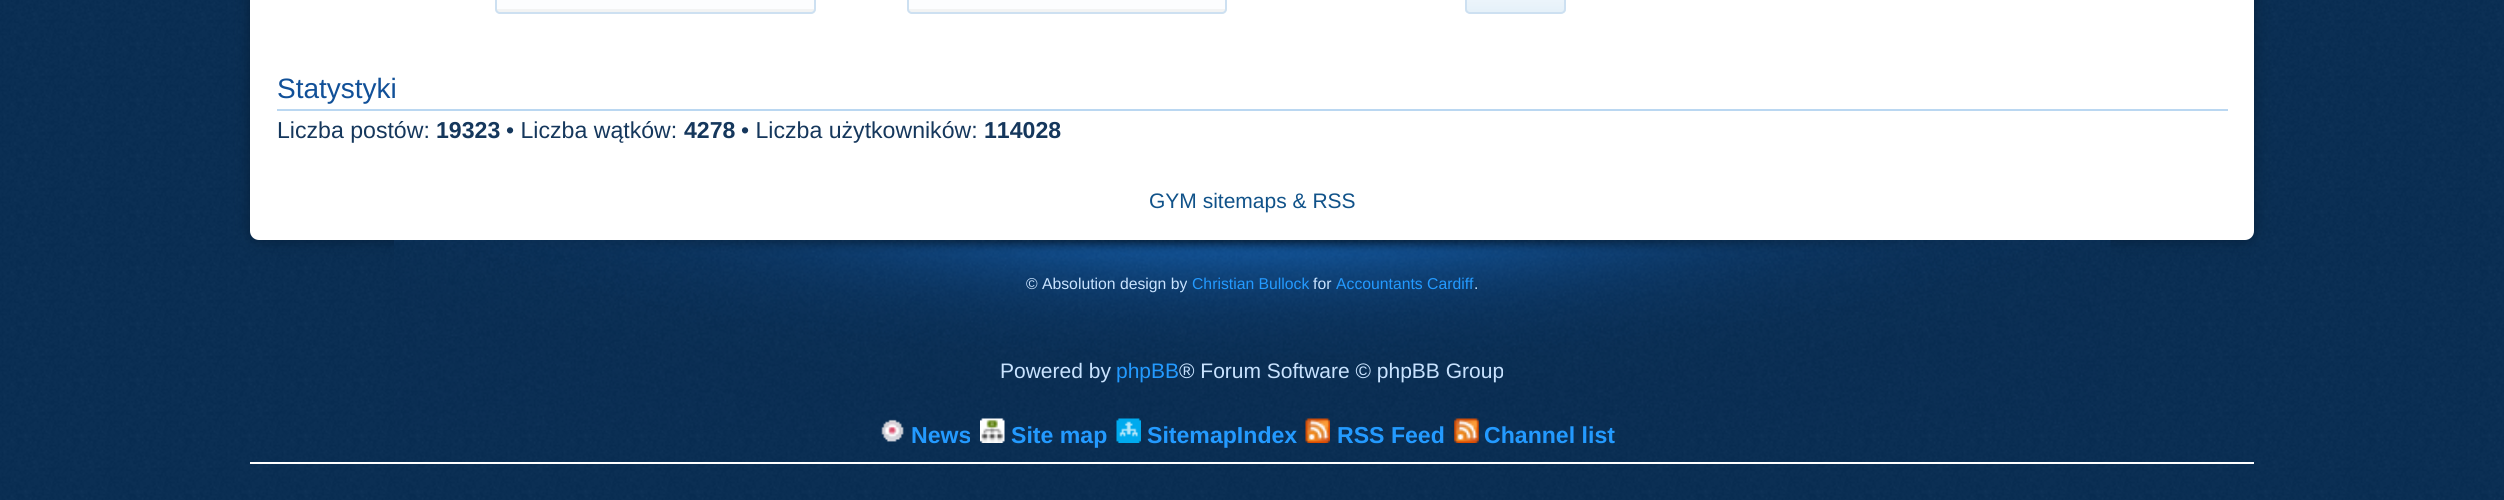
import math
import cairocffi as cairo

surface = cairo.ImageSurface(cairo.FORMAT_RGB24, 2504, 500)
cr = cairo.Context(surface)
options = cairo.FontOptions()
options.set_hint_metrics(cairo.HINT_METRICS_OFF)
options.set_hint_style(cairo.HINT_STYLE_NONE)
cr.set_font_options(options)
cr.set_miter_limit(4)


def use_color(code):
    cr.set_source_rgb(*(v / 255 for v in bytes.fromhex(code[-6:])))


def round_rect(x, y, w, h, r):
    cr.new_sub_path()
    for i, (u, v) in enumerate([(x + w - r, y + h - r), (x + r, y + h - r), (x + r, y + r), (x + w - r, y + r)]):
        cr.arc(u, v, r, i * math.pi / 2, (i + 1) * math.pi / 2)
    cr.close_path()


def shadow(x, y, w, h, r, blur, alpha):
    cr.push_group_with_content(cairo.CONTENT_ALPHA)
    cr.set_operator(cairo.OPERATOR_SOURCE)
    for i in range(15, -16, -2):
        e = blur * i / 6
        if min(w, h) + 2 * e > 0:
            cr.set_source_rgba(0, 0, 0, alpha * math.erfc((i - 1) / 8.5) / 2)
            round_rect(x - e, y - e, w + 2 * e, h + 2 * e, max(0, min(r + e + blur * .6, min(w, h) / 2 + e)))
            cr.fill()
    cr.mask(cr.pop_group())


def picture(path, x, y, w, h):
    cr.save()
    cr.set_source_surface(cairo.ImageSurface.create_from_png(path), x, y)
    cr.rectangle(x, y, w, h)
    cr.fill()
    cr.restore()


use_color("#093059")
cr.paint()
picture("img1.png", 0, 0, 2504, 500)
use_color("#051f39")
shadow(250, -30, 2004, 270, 9, 7, 1)
use_color("#ffffff")
cr.new_path()
cr.move_to(250, -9)
cr.line_to(2254, -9)
cr.line_to(2254, 231)
cr.curve_to(2254, 236, 2250, 240, 2245, 240)
cr.line_to(259, 240)
cr.curve_to(254, 240, 250, 236, 250, 231)
cr.close_path()
cr.fill()
use_color("#f2f3f3")
round_rect(495, -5, 321, 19, 5)
cr.fill()
use_color("#fcfdfe")
cr.rectangle(497, 0, 317, 9)
cr.fill()
round_rect(496, -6, 319, 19, 4)
use_color("#cde0f1")
cr.stroke()
use_color("#f2f3f3")
round_rect(907, -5, 320, 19, 5)
cr.fill()
use_color("#fcfdfe")
cr.rectangle(909, 0, 316, 9)
cr.fill()
round_rect(908, -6, 318, 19, 4)
use_color("#cde0f1")
cr.stroke()
picture("img2.png", 1465, 0, 101, 13)
round_rect(1466, -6, 99, 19, 4)
cr.stroke()
use_color("#bad7f1")
cr.rectangle(277, 109, 1951, 2)
cr.fill()
cr.select_font_face("Liberation Sans")
cr.set_font_size(28)
use_color("#115098")
cr.move_to(277, 98)
cr.show_text("Statystyki")
cr.set_font_size(23.1)
use_color("#15375c")
cr.move_to(277, 138)
cr.show_text("Liczba postów:")
cr.select_font_face("Liberation Sans", cairo.FONT_SLANT_NORMAL, cairo.FONT_WEIGHT_BOLD)
cr.move_to(436, 138)
cr.show_text("19323")
cr.select_font_face("Liberation Sans")
cr.move_to(506, 138)
cr.show_text("• Liczba wątków:")
cr.select_font_face("Liberation Sans", cairo.FONT_SLANT_NORMAL, cairo.FONT_WEIGHT_BOLD)
cr.move_to(684, 138)
cr.show_text("4278")
cr.select_font_face("Liberation Sans")
cr.move_to(741, 138)
cr.show_text("• Liczba użytkowników:")
cr.select_font_face("Liberation Sans", cairo.FONT_SLANT_NORMAL, cairo.FONT_WEIGHT_BOLD)
cr.move_to(984, 138)
cr.show_text("114028")
cr.select_font_face("Liberation Sans")
cr.set_font_size(21)
use_color("#105289")
cr.move_to(1149, 208)
cr.show_text("GYM sitemaps & RSS")
picture("img3.png", 394, 240, 1717, 190)
cr.set_font_size(15.75)
use_color("#c9e3ff")
cr.move_to(1026, 289)
cr.show_text("© Absolution design by")
use_color("#239aff")
cr.move_to(1192, 289)
cr.show_text("Christian Bullock")
use_color("#c9e3ff")
cr.move_to(1313, 289)
cr.show_text("for")
use_color("#239aff")
cr.move_to(1336, 289)
cr.show_text("Accountants Cardiff")
use_color("#c9e3ff")
cr.move_to(1474, 289)
cr.show_text(".")
cr.set_font_size(21)
cr.move_to(1000, 378)
cr.show_text("Powered by")
use_color("#239aff")
cr.move_to(1116, 378)
cr.show_text("phpBB")
use_color("#c9e3ff")
cr.move_to(1179, 378)
cr.show_text("® Forum Software © phpBB Group")
use_color("#ffffff")
cr.rectangle(250, 462, 2004, 2)
cr.fill()
picture("img4.png", 881, 419, 23, 23)
cr.select_font_face("Liberation Sans", cairo.FONT_SLANT_NORMAL, cairo.FONT_WEIGHT_BOLD)
cr.set_font_size(23.1)
use_color("#239aff")
cr.move_to(911, 443)
cr.show_text("News")
picture("img5.png", 980, 418, 25, 25)
cr.move_to(1011, 443)
cr.show_text("Site map")
picture("img6.png", 1116, 418, 25, 25)
cr.move_to(1147, 443)
cr.show_text("SitemapIndex")
picture("img7.png", 1305, 418, 25, 25)
cr.move_to(1337, 443)
cr.show_text("RSS Feed")
picture("img8.png", 1454, 418, 25, 25)
cr.move_to(1484, 443)
cr.show_text("Channel list")
surface.write_to_png("result.png")
